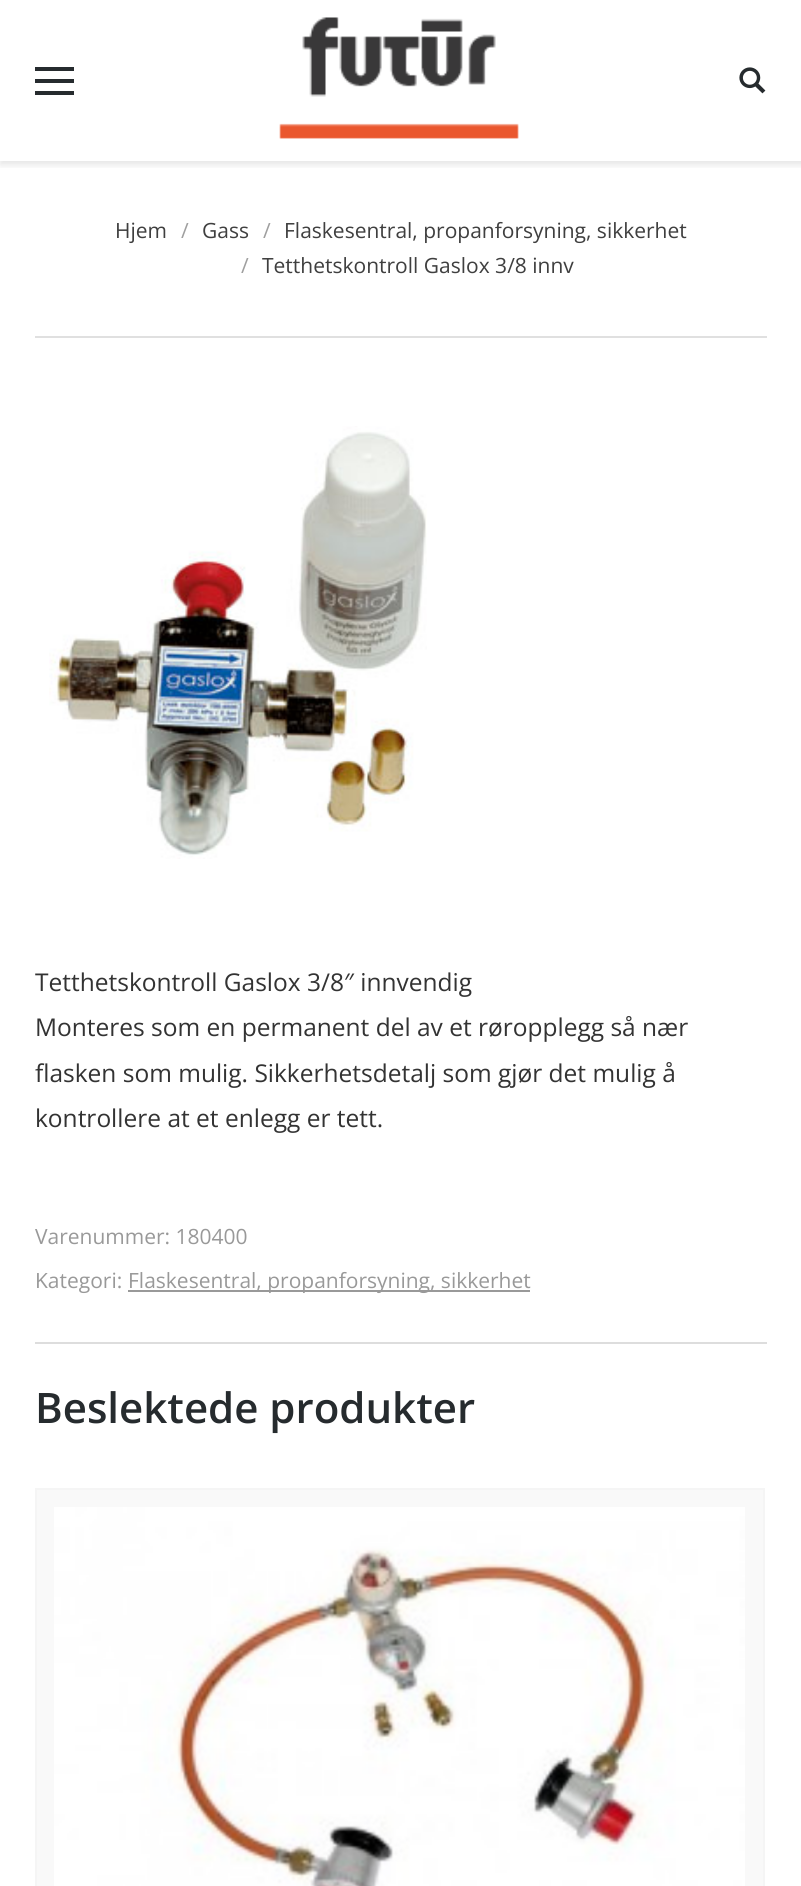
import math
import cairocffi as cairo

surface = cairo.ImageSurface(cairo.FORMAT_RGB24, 801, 1886)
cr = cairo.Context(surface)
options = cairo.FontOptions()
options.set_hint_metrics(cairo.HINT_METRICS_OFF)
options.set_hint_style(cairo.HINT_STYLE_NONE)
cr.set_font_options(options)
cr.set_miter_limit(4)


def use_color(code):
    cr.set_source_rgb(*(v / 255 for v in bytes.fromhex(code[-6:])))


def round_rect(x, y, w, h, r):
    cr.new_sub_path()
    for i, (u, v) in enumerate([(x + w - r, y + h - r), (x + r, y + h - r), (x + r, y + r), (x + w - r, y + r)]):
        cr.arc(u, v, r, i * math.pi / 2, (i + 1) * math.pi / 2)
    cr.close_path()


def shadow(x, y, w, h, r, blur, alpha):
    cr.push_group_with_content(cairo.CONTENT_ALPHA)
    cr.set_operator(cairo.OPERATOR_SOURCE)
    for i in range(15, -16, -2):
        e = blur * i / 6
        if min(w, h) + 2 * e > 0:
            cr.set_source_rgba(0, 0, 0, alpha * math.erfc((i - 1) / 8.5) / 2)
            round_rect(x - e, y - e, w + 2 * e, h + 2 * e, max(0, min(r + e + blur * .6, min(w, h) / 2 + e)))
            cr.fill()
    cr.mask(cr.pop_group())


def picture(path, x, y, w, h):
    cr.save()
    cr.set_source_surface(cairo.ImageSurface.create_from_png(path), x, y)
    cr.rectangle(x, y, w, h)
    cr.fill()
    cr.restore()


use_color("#ffffff")
cr.paint()
cr.save()
cr.rectangle(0, 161, 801, 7)
cr.clip()
use_color("#000000")
shadow(0, 0, 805, 165, 0, 3.5, 0.1)
cr.restore()
use_color("#262b2e")
cr.rectangle(35, 79, 39, 4)
cr.fill()
cr.rectangle(35, 67, 39, 4)
cr.fill()
cr.rectangle(35, 91, 39, 4)
cr.fill()
picture("img1.png", 279, 17, 240, 122)
picture("img2.png", 739, 67, 27, 27)
use_color("#e0e0e0")
cr.rectangle(35, 336, 732, 2)
cr.fill()
cr.select_font_face("Open Sans")
cr.set_font_size(21)
use_color("#3f3f3f")
cr.move_to(115, 238)
cr.show_text("Hjem")
use_color("#9f9f9f")
cr.move_to(181, 238)
cr.show_text("/")
use_color("#3f3f3f")
cr.move_to(202, 238)
cr.show_text("Gass")
use_color("#9f9f9f")
cr.move_to(263, 238)
cr.show_text("/")
use_color("#3f3f3f")
cr.move_to(284, 238)
cr.show_text("Flaskesentral, propanforsyning, sikkerhet")
use_color("#9f9f9f")
cr.move_to(241, 273)
cr.show_text("/")
use_color("#3f3f3f")
cr.move_to(262, 273)
cr.show_text("Tetthetskontroll Gaslox 3/8 innv")
picture("img3.png", 49, 426, 378, 433)
cr.set_font_size(24.5)
use_color("#333333")
cr.move_to(35, 991)
cr.show_text("Tetthetskontroll Gaslox 3/8″ innvendig")
cr.move_to(35, 1036)
cr.show_text("Monteres som en permanent del av et røropplegg så nær")
cr.move_to(35, 1082)
cr.show_text("flasken som mulig. Sikkerhetsdetalj som gjør det mulig å")
cr.move_to(35, 1127)
cr.show_text("kontrollere at et enlegg er tett.")
cr.set_font_size(21)
use_color("#999999")
cr.move_to(35, 1244)
cr.show_text("Varenummer: 180400")
cr.move_to(35, 1288)
cr.show_text("Kategori:")
cr.rectangle(128, 1290, 402, 2)
cr.fill()
cr.move_to(128, 1288)
cr.show_text("Flaskesentral, propanforsyning, sikkerhet")
use_color("#dddddd")
cr.rectangle(35, 1342, 732, 2)
cr.fill()
cr.select_font_face("Open Sans SemiBold")
cr.set_font_size(42)
use_color("#262b2e")
cr.move_to(35, 1423)
cr.show_text("Beslektede produkter")
use_color("#f9f9f9")
cr.rectangle(36, 1489, 728, 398)
cr.fill_preserve()
use_color("#f5f5f5")
cr.stroke()
picture("img4.png", 54, 1507, 691, 379)
surface.write_to_png("result.png")
